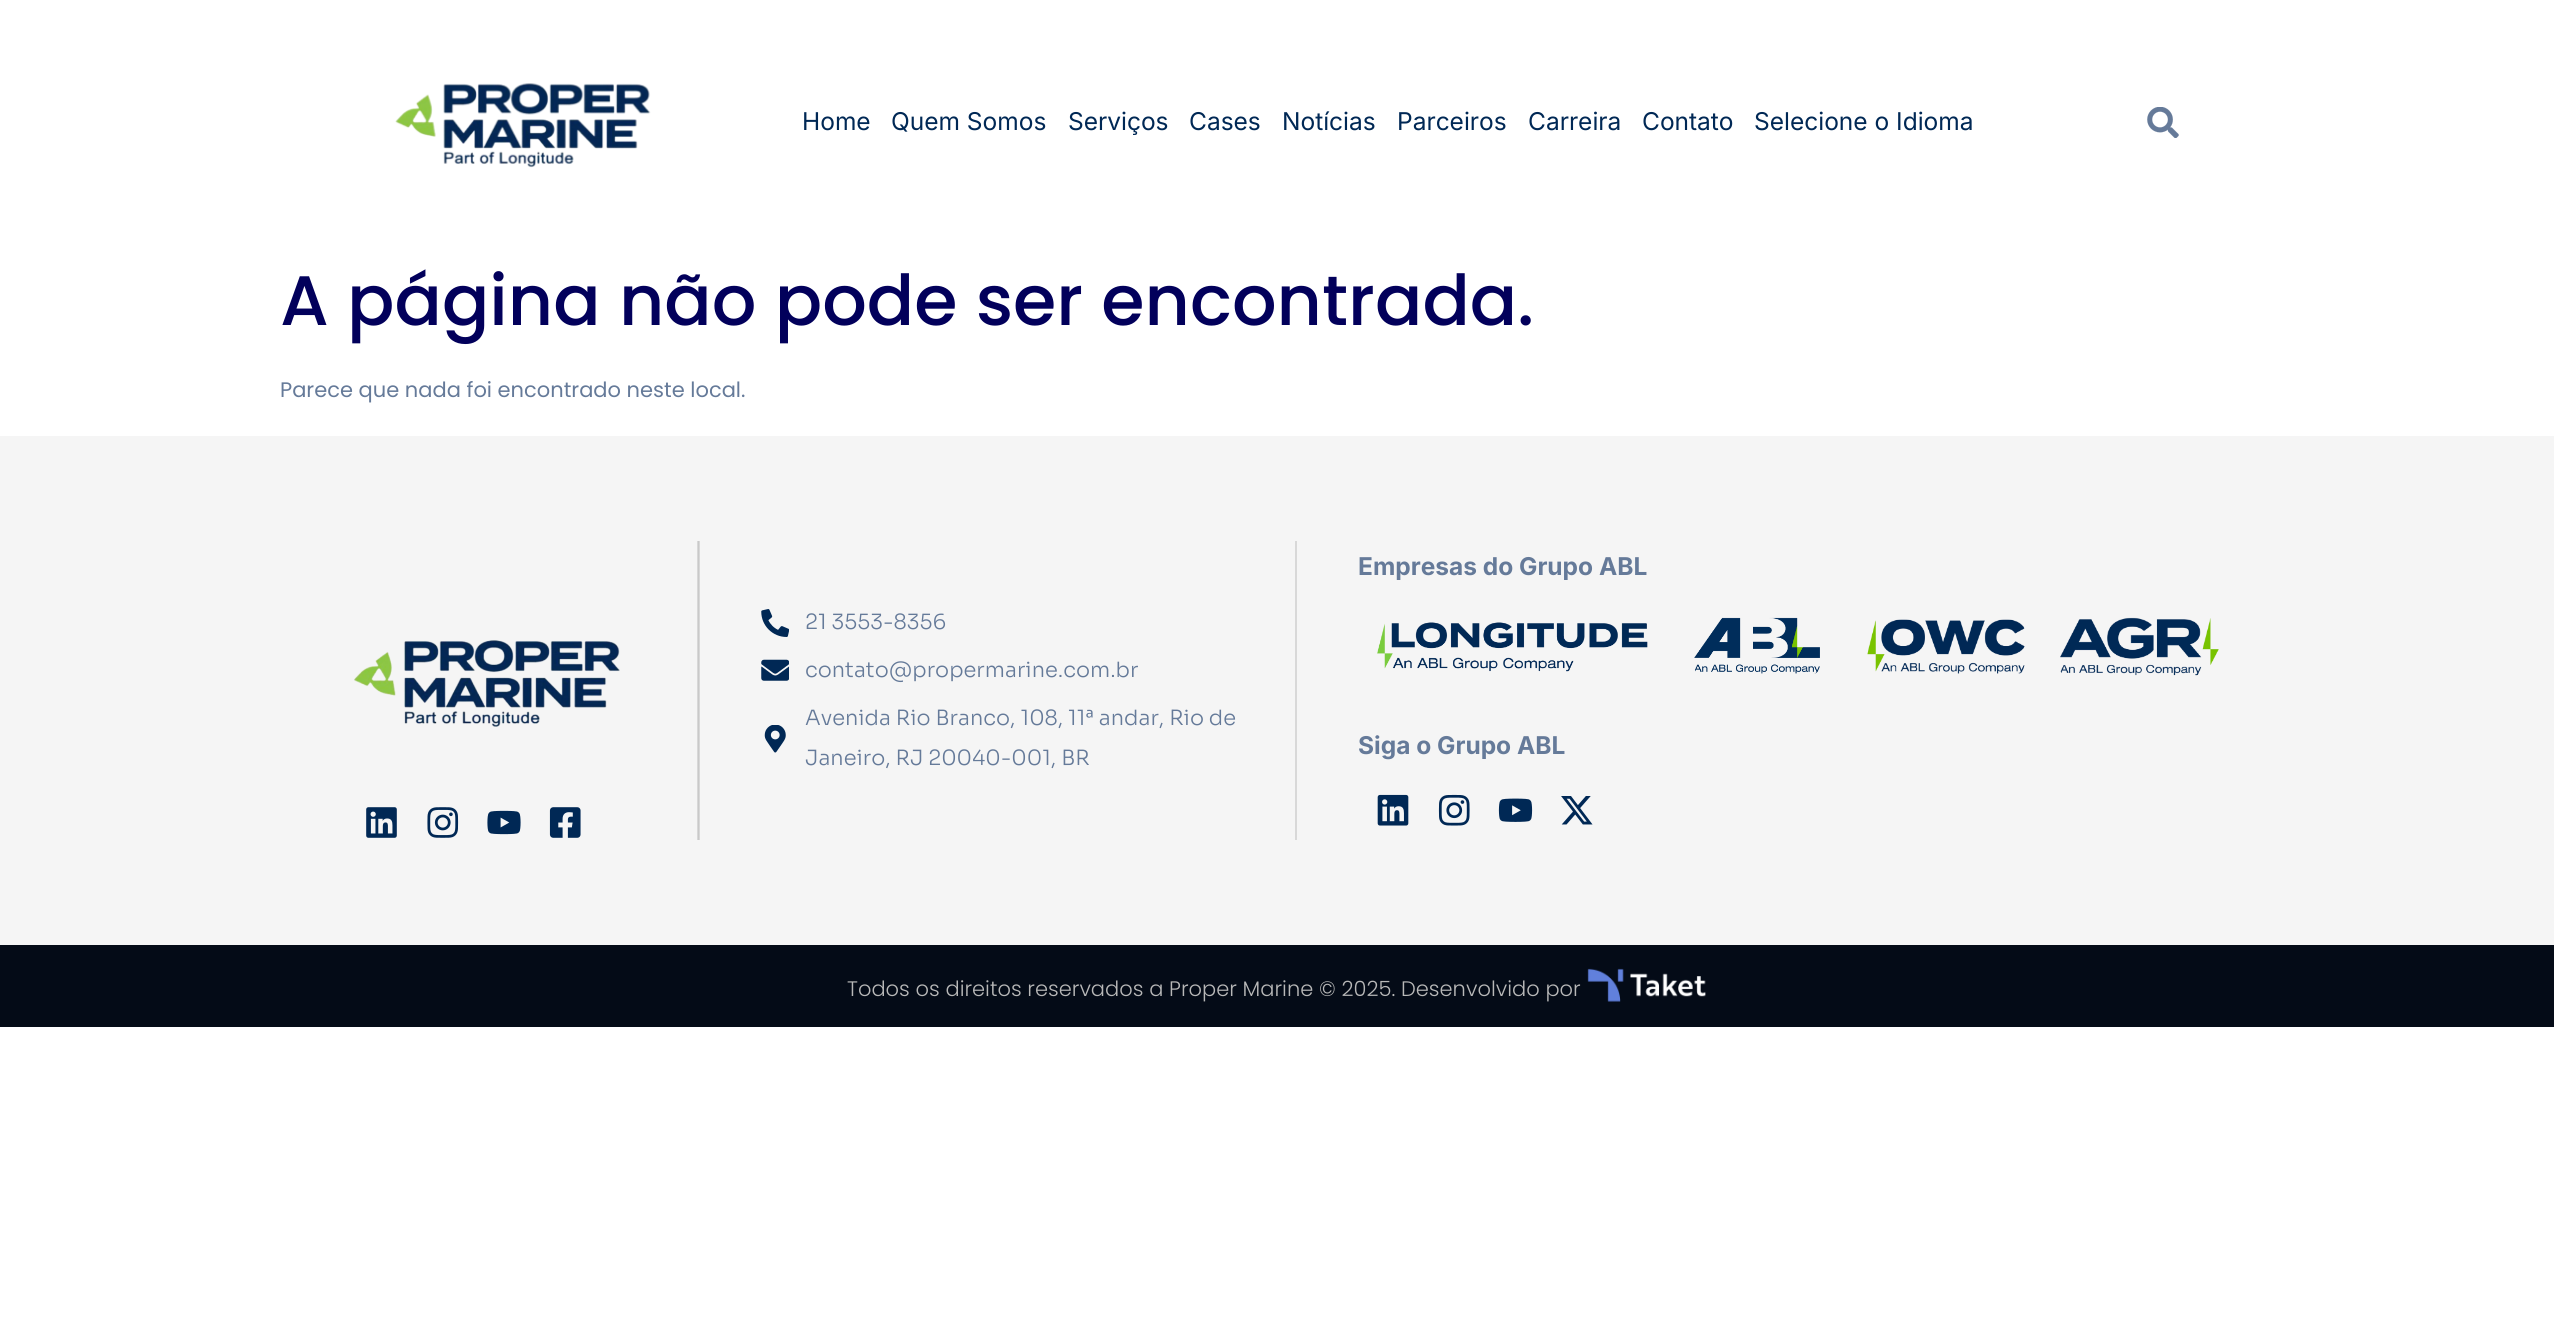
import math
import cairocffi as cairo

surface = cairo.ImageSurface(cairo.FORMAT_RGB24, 2554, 1320)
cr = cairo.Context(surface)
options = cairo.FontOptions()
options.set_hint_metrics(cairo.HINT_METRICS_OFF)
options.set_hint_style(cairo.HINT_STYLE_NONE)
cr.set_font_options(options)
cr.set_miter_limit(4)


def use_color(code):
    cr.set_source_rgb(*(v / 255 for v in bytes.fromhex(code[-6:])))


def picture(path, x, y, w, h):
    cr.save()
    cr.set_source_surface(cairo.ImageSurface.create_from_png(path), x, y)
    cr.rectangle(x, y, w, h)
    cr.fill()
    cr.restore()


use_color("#ffffff")
cr.paint()
picture("img1.png", 395, 83, 256, 85)
cr.select_font_face("Inter")
cr.set_font_size(24.5)
use_color("#002855")
cr.move_to(802, 130)
cr.show_text("Home")
cr.move_to(891, 130)
cr.show_text("Quem Somos")
cr.move_to(1068, 130)
cr.show_text("Serviços")
cr.move_to(1189, 130)
cr.show_text("Cases")
cr.move_to(1282, 130)
cr.show_text("Notícias")
cr.move_to(1397, 130)
cr.show_text("Parceiros")
cr.move_to(1528, 130)
cr.show_text("Carreira")
cr.move_to(1642, 130)
cr.show_text("Contato")
cr.move_to(1754, 130)
cr.show_text("Selecione o Idioma")
picture("img2.png", 2147, 107, 32, 31)
cr.select_font_face("Poppins Medium")
cr.set_font_size(70)
use_color("#02005b")
cr.move_to(280, 325)
cr.show_text("A página não pode ser encontrada.")
cr.select_font_face("Poppins")
cr.set_font_size(21)
use_color("#657a99")
cr.move_to(280, 397)
cr.show_text("Parece que nada foi encontrado neste local.")
use_color("#f5f5f5")
cr.rectangle(0, 436, 2554, 509)
cr.fill()
use_color("#d8d8d8")
cr.rectangle(699, 541, 1, 299)
cr.fill()
cr.rectangle(697, 541, 1, 299)
cr.fill()
use_color("#c9c9c9")
cr.rectangle(698, 541, 1, 299)
cr.fill()
picture("img3.png", 354, 640, 266, 87)
picture("img4.png", 366, 807, 31, 31)
picture("img5.png", 427, 807, 32, 31)
picture("img6.png", 487, 810, 34, 25)
picture("img7.png", 549, 807, 32, 31)
use_color("#d8d8d8")
cr.rectangle(1295, 541, 2, 299)
cr.fill()
picture("img8.png", 761, 609, 28, 28)
cr.select_font_face("Sora Light")
use_color("#657a99")
cr.move_to(805, 629)
cr.show_text("21 3553-8356")
picture("img9.png", 761, 659, 28, 22)
cr.move_to(805, 677)
cr.show_text("contato@propermarine.com.br")
picture("img10.png", 764, 725, 22, 28)
cr.move_to(805, 725)
cr.show_text("Avenida Rio Branco, 108, 11ª andar, Rio de")
cr.move_to(805, 765)
cr.show_text("Janeiro, RJ 20040-001, BR")
cr.select_font_face("Inter", cairo.FONT_SLANT_NORMAL, cairo.FONT_WEIGHT_BOLD)
cr.set_font_size(24.5)
cr.move_to(1358, 575)
cr.show_text("Empresas do Grupo ABL")
picture("img11.png", 1377, 622, 271, 50)
picture("img12.png", 1694, 617, 126, 57)
picture("img13.png", 1867, 619, 158, 55)
picture("img14.png", 2060, 617, 159, 59)
cr.move_to(1358, 754)
cr.show_text("Siga o Grupo ABL")
picture("img15.png", 1377, 794, 32, 32)
picture("img16.png", 1438, 794, 32, 32)
picture("img17.png", 1498, 798, 35, 24)
picture("img18.png", 1561, 796, 32, 29)
use_color("#040b17")
cr.rectangle(0, 945, 2554, 82)
cr.fill()
cr.select_font_face("Poppins Light")
cr.set_font_size(21)
use_color("#b8b8b8")
cr.move_to(847, 996)
cr.show_text("Todos os direitos reservados a Proper Marine © 2025. Desenvolvido por")
picture("img19.png", 1587, 968, 119, 34)
surface.write_to_png("result.png")
